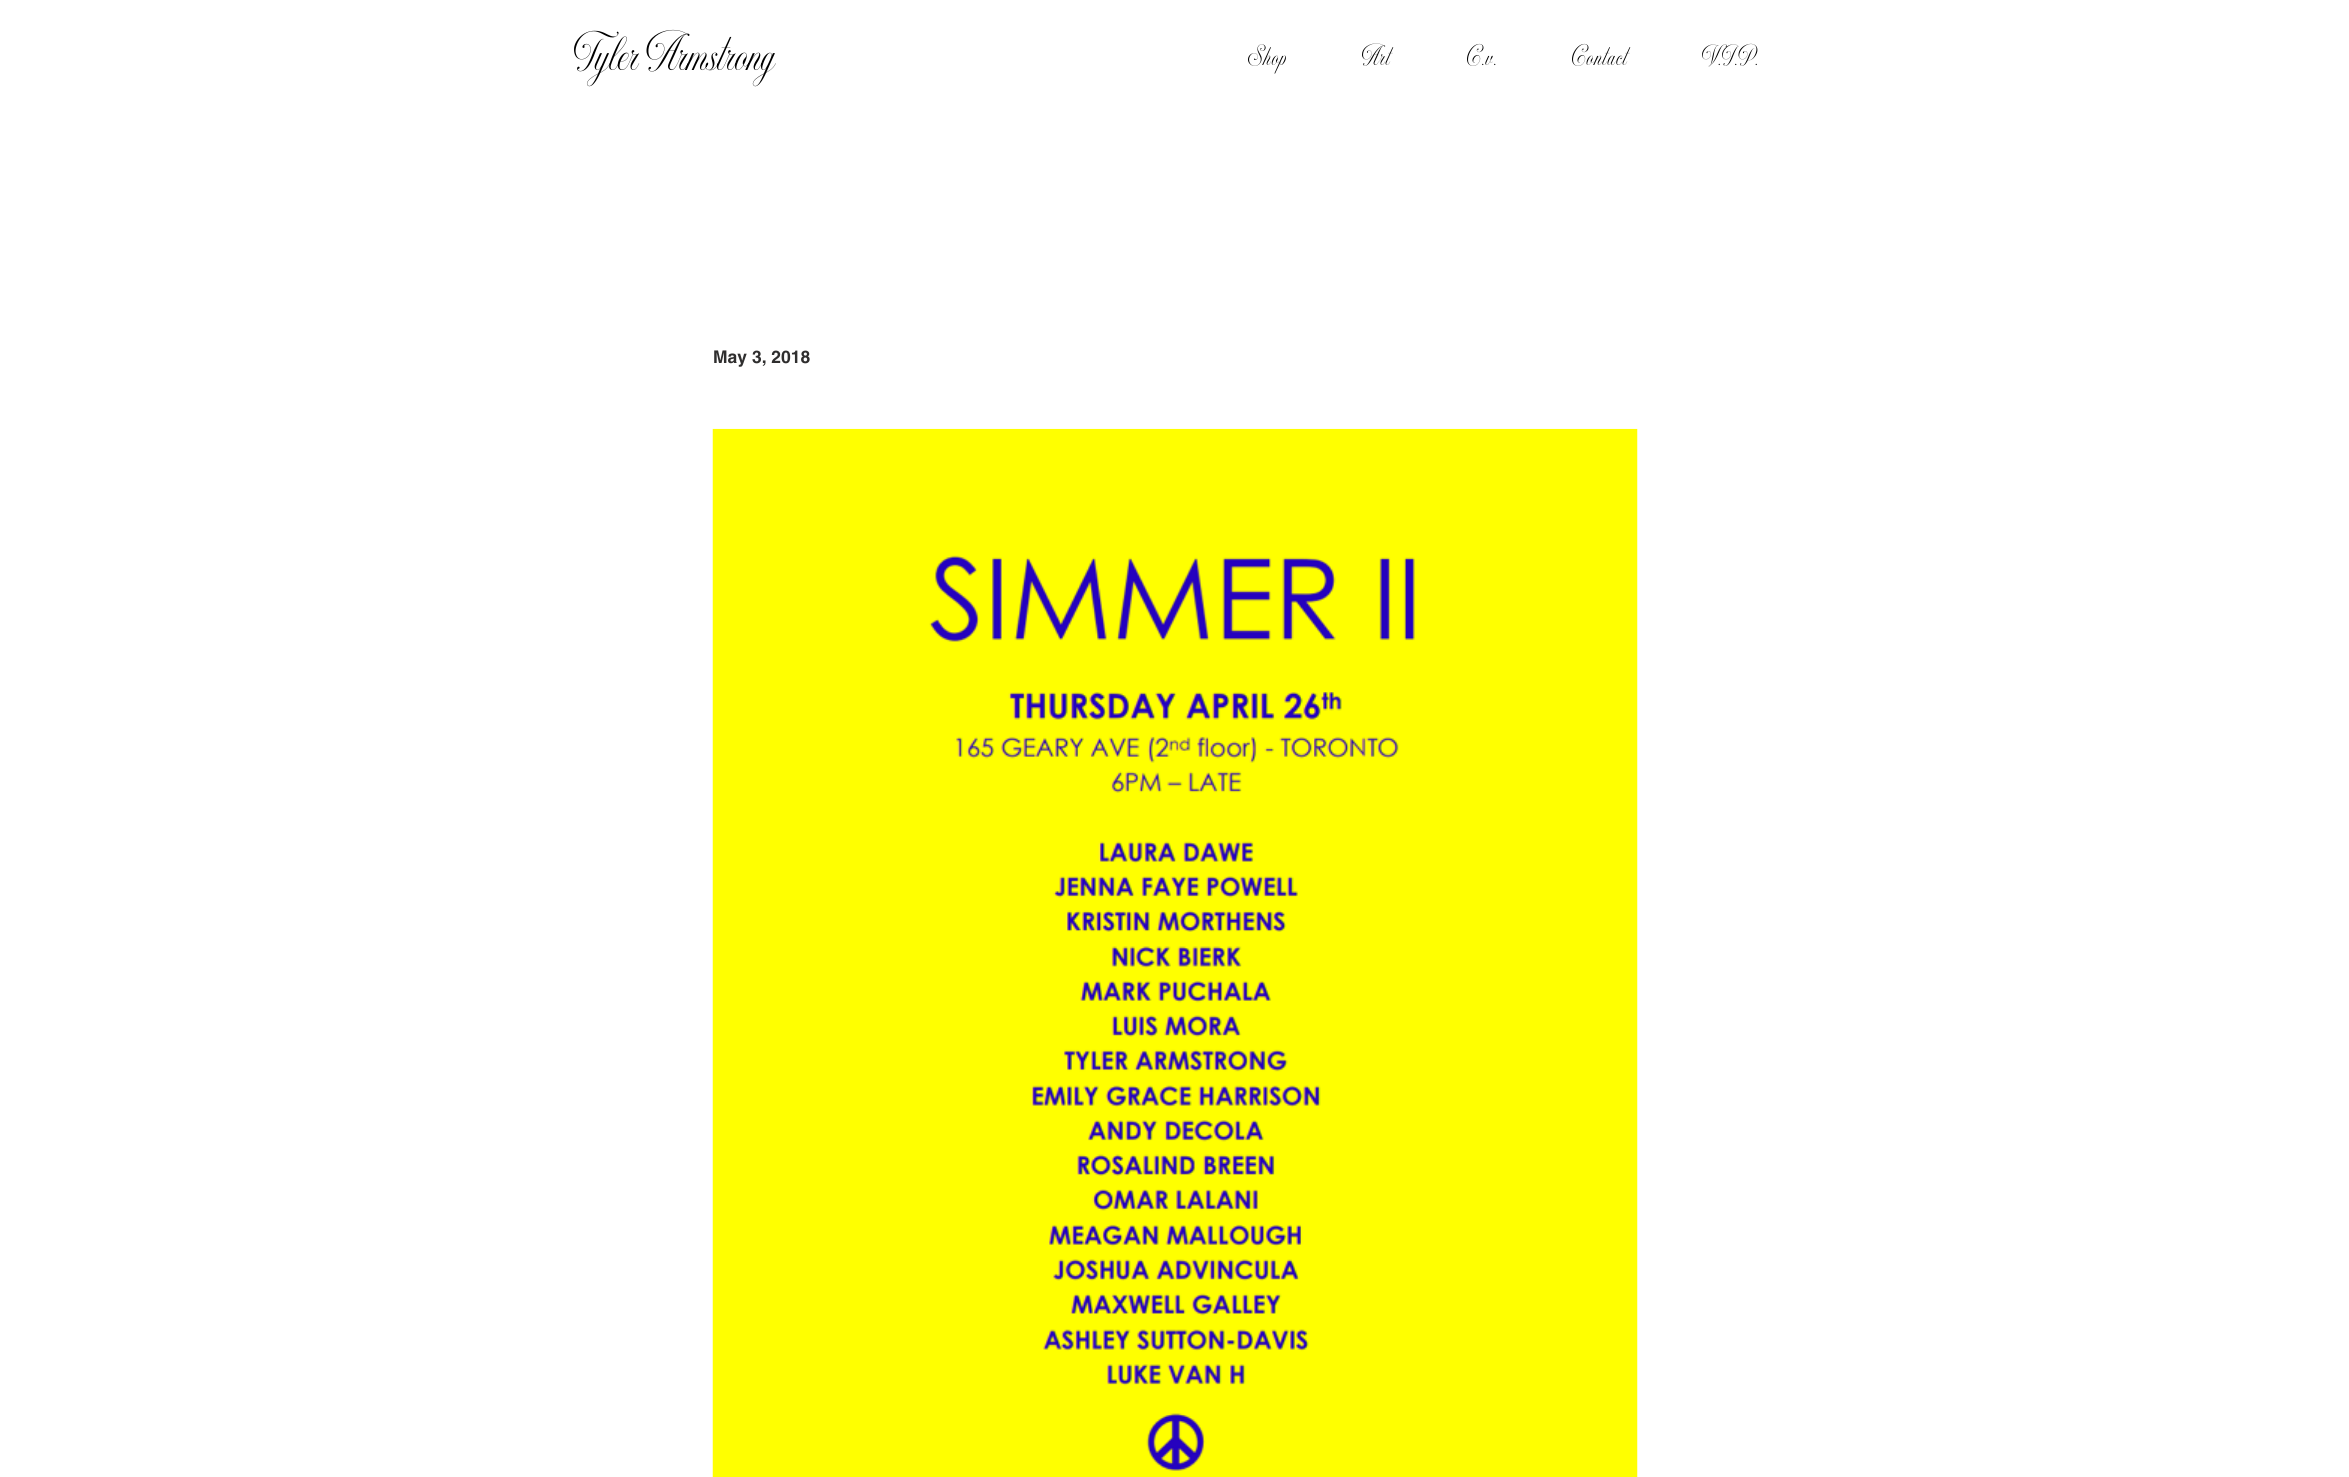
import math
import cairocffi as cairo

surface = cairo.ImageSurface(cairo.FORMAT_RGB24, 2349, 1477)
cr = cairo.Context(surface)
options = cairo.FontOptions()
options.set_hint_metrics(cairo.HINT_METRICS_OFF)
options.set_hint_style(cairo.HINT_STYLE_NONE)
cr.set_font_options(options)
cr.set_miter_limit(4)


def use_color(code):
    cr.set_source_rgb(*(v / 255 for v in bytes.fromhex(code[-6:])))


def spaced_text(x, y, s, letter, word):
    cr.move_to(x, y)
    for ch in s:
        cr.show_text(ch)
        cr.rel_move_to(letter + word * (ch == ' '), 0)


def picture(path, x, y, w, h):
    cr.save()
    cr.set_source_surface(cairo.ImageSurface.create_from_png(path), x, y)
    cr.rectangle(x, y, w, h)
    cr.fill()
    cr.restore()


use_color("#ffffff")
cr.paint()
cr.select_font_face("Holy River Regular")
cr.set_font_size(32.5)
use_color("#000000")
cr.move_to(574, 70)
cr.show_text("Tyler Armstrong")
cr.set_font_size(17.5)
spaced_text(1248, 65, "Shop", 1, 0)
spaced_text(1362, 65, "Art", 1, 0)
spaced_text(1467, 65, "C.v.", 1, 0)
spaced_text(1572, 65, "Contact", 1, 0)
spaced_text(1702, 65, "V.I.P.", 1, 0)
cr.select_font_face("helvetica", cairo.FONT_SLANT_NORMAL, cairo.FONT_WEIGHT_BOLD)
use_color("#2f2e2e")
cr.move_to(713, 363)
cr.show_text("May 3, 2018")
picture("img1.png", 712, 428, 926, 1049)
surface.write_to_png("result.png")
